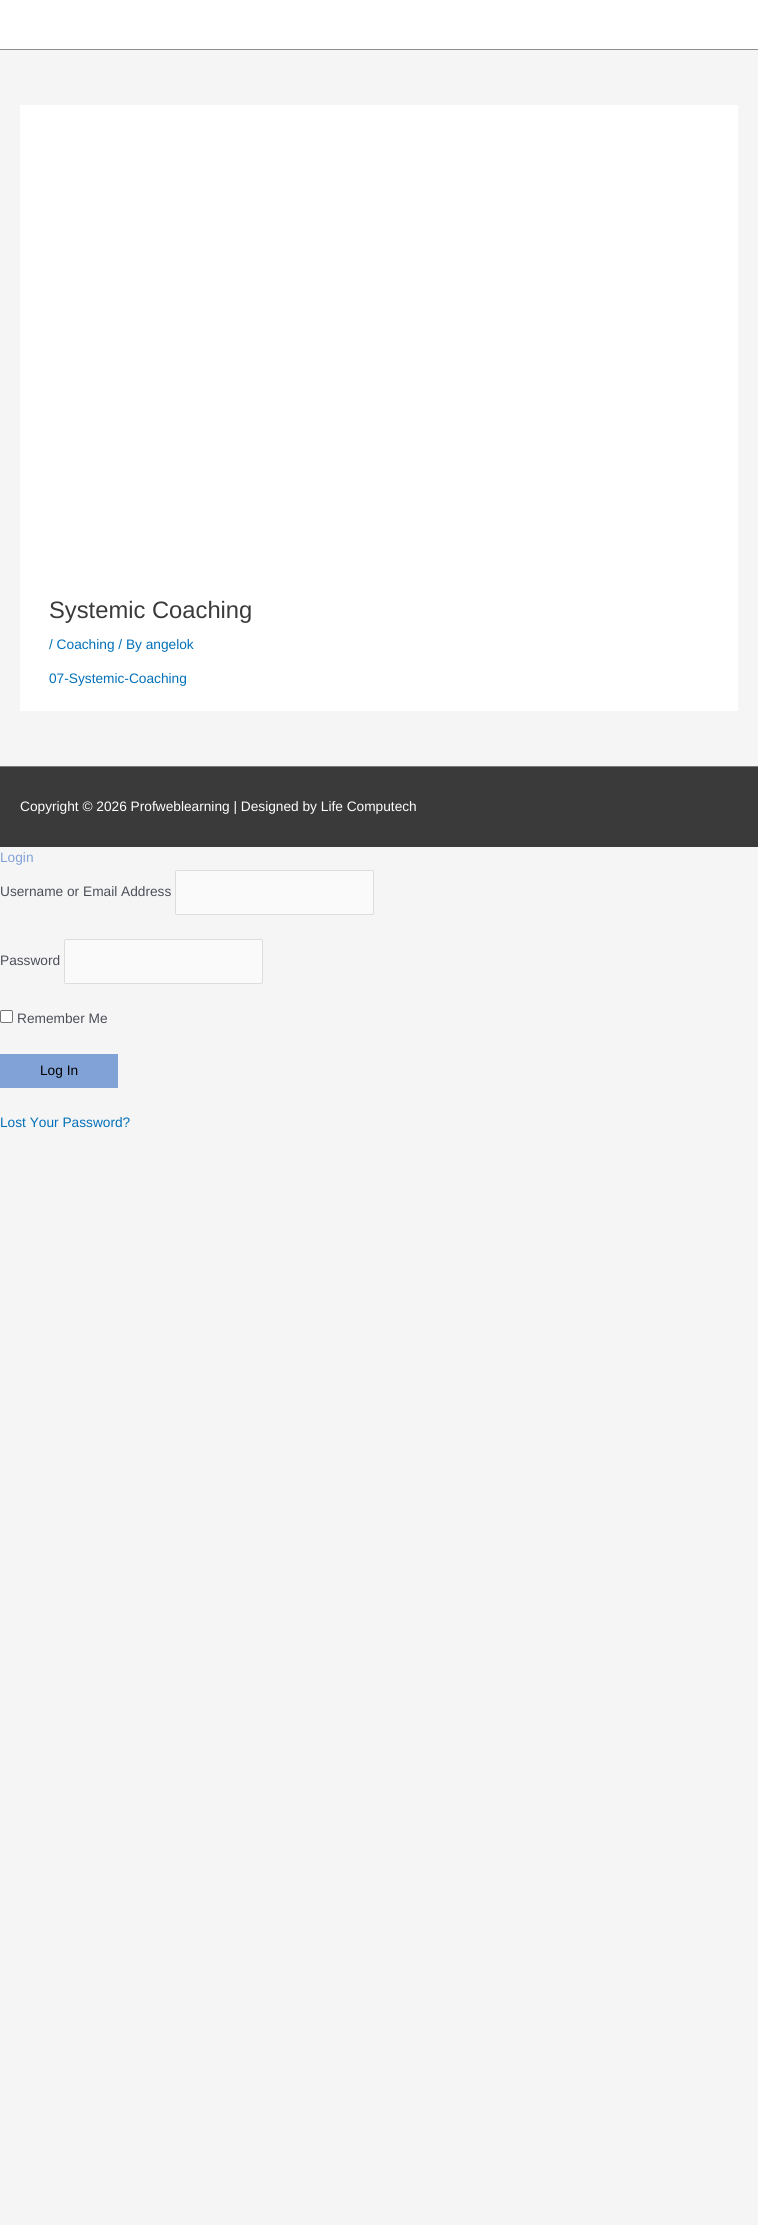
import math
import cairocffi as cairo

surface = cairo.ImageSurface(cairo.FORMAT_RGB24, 758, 2225)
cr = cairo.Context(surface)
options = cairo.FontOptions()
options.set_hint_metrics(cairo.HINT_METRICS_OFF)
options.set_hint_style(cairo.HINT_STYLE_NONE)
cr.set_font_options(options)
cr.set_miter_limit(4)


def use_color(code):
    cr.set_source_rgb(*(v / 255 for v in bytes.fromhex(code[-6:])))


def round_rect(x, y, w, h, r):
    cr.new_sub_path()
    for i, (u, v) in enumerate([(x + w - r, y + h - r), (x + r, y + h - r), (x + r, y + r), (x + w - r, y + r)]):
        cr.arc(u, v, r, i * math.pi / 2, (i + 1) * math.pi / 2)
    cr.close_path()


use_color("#f5f5f5")
cr.paint()
use_color("#ffffff")
cr.rectangle(0, 0, 758, 49)
cr.fill()
use_color("#8f8f8f")
cr.rectangle(0, 49, 758, 1)
cr.fill()
use_color("#ffffff")
cr.rectangle(20, 105, 718, 606)
cr.fill()
cr.select_font_face("Liberation Sans")
cr.set_font_size(23.75)
use_color("#3a3a3a")
cr.move_to(49, 618)
cr.show_text("Systemic Coaching")
cr.set_font_size(13.7)
use_color("#0170b9")
cr.move_to(49, 649)
cr.show_text("/ Coaching / By angelok")
cr.move_to(49, 683)
cr.show_text("07-Systemic-Coaching")
use_color("#7a7a7a")
cr.rectangle(0, 766, 758, 1)
cr.fill()
use_color("#3a3a3a")
cr.rectangle(0, 767, 758, 80)
cr.fill()
use_color("#ffffff")
cr.move_to(20, 811)
cr.show_text("Copyright © 2026 Profweblearning | Designed by Life Computech")
use_color("#81a2d7")
cr.move_to(0, 862)
cr.show_text("Login")
use_color("#4b4f58")
cr.move_to(0, 896)
cr.show_text("Username or Email Address")
use_color("#fafafa")
round_rect(175.5, 870.5, 198, 44, 1.5)
cr.fill_preserve()
use_color("#dddddd")
cr.set_line_width(1)
cr.stroke()
use_color("#4b4f58")
cr.move_to(0, 965)
cr.show_text("Password")
use_color("#fafafa")
round_rect(64.5, 939.5, 198, 44, 1.5)
cr.fill_preserve()
use_color("#dddddd")
cr.stroke()
use_color("#ffffff")
round_rect(0.5, 1010.5, 12, 12, 1.5)
cr.fill_preserve()
use_color("#767676")
cr.stroke()
use_color("#4b4f58")
cr.move_to(17, 1023)
cr.show_text("Remember Me")
use_color("#81a2d7")
cr.rectangle(0, 1054, 118, 34)
cr.fill()
use_color("#000000")
cr.move_to(40, 1075)
cr.show_text("Log In")
use_color("#0170b9")
cr.move_to(0, 1127)
cr.show_text("Lost Your Password?")
surface.write_to_png("result.png")
